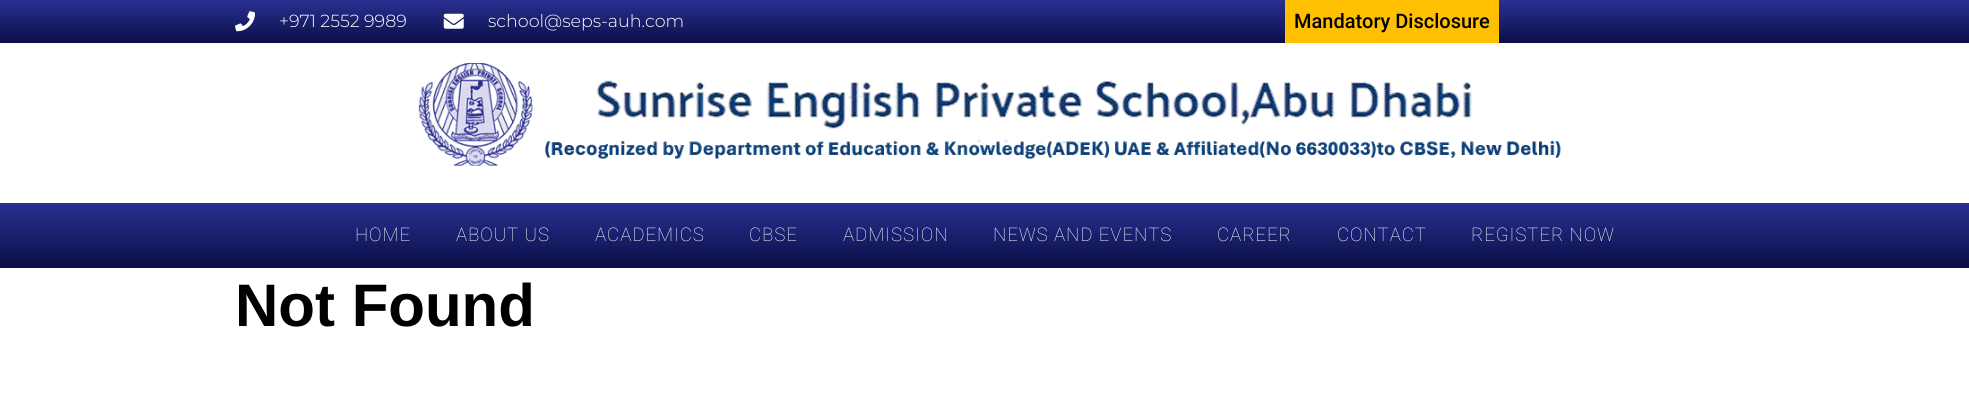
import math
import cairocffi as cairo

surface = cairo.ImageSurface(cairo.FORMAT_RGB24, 1969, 407)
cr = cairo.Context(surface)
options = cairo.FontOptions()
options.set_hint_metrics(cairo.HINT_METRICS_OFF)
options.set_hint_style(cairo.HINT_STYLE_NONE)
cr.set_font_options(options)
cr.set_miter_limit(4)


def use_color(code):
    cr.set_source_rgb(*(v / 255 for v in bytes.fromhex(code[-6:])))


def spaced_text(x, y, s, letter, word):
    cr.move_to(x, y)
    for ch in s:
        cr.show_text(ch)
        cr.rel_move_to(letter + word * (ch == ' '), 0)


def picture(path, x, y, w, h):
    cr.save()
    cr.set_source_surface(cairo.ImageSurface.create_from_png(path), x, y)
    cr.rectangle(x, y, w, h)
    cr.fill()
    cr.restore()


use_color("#ffffff")
cr.paint()
gradient = cairo.LinearGradient(985, 0, 985, 43)
gradient.add_color_stop_rgba(0, 0.161, 0.188, 0.573, 1)
gradient.add_color_stop_rgba(1, 0.043, 0.059, 0.278, 1)
cr.set_source(gradient)
cr.rectangle(0, 0, 1969, 43)
cr.fill()
picture("img1.png", 235, 11, 20, 21)
cr.select_font_face("Montserrat Light")
cr.set_font_size(17.5)
use_color("#ffffff")
cr.move_to(279, 27)
cr.show_text("+971 2552 9989")
picture("img2.png", 443, 13, 21, 16)
cr.move_to(488, 27)
cr.show_text("school@seps-auh.com")
use_color("#ffc001")
cr.rectangle(1285, 0, 214, 43)
cr.fill()
cr.select_font_face("Roboto Medium")
cr.set_font_size(20)
use_color("#000000")
cr.move_to(1294, 28)
cr.show_text("Mandatory Disclosure")
picture("img3.png", 418, 63, 1143, 103)
gradient = cairo.LinearGradient(985, 202, 985, 268)
gradient.add_color_stop_rgba(0, 0.161, 0.188, 0.573, 1)
gradient.add_color_stop_rgba(1, 0.043, 0.059, 0.278, 1)
cr.set_source(gradient)
cr.rectangle(0, 203, 1969, 65)
cr.fill()
cr.select_font_face("Roboto Thin")
cr.set_font_size(18.75)
use_color("#ffffff")
spaced_text(355, 241, "HOME", 0.9, 0)
spaced_text(456, 241, "ABOUT US", 0.9, 0)
spaced_text(595, 241, "ACADEMICS", 0.9, 0)
spaced_text(749, 241, "CBSE", 0.9, 0)
spaced_text(843, 241, "ADMISSION", 0.9, 0)
spaced_text(993, 241, "NEWS AND EVENTS", 0.9, 0)
spaced_text(1217, 241, "CAREER", 0.9, 0)
spaced_text(1337, 241, "CONTACT", 0.9, 0)
spaced_text(1471, 241, "REGISTER NOW", 0.9, 0)
cr.select_font_face("Liberation Sans", cairo.FONT_SLANT_NORMAL, cairo.FONT_WEIGHT_BOLD)
cr.set_font_size(60)
use_color("#000000")
cr.move_to(235, 326)
cr.show_text("Not Found")
surface.write_to_png("result.png")
